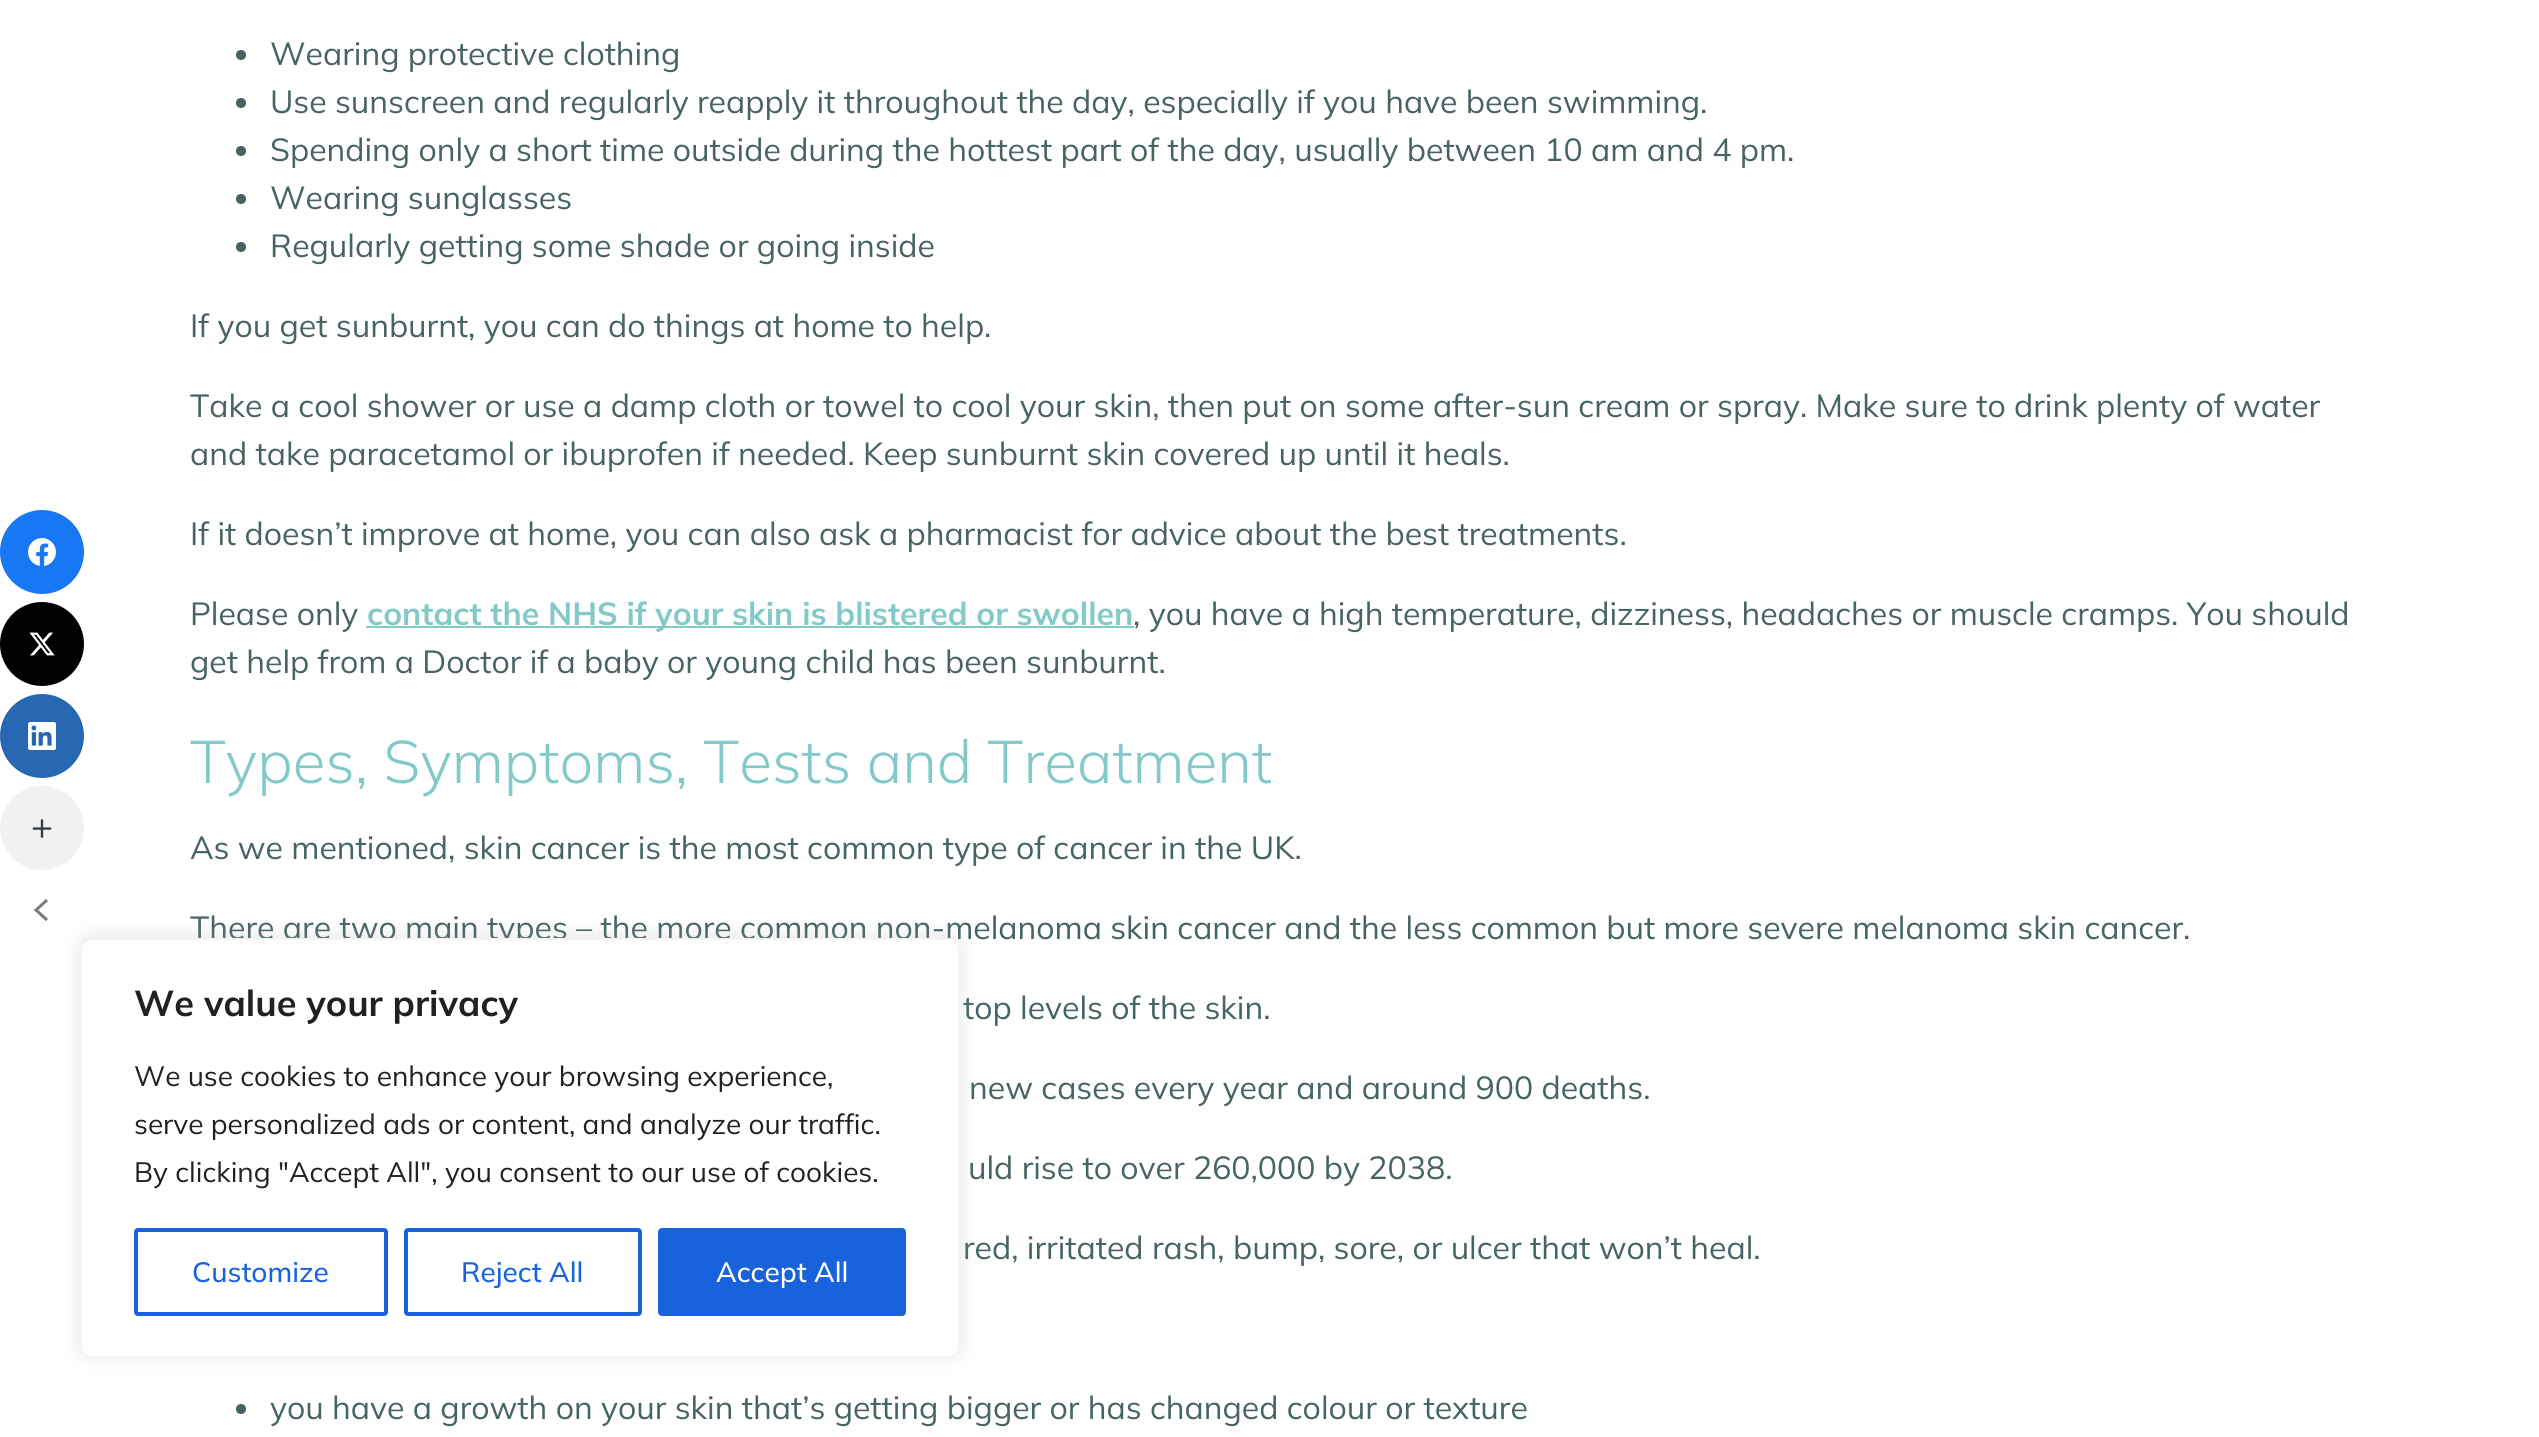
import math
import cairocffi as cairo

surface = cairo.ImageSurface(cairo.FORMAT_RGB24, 2539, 1437)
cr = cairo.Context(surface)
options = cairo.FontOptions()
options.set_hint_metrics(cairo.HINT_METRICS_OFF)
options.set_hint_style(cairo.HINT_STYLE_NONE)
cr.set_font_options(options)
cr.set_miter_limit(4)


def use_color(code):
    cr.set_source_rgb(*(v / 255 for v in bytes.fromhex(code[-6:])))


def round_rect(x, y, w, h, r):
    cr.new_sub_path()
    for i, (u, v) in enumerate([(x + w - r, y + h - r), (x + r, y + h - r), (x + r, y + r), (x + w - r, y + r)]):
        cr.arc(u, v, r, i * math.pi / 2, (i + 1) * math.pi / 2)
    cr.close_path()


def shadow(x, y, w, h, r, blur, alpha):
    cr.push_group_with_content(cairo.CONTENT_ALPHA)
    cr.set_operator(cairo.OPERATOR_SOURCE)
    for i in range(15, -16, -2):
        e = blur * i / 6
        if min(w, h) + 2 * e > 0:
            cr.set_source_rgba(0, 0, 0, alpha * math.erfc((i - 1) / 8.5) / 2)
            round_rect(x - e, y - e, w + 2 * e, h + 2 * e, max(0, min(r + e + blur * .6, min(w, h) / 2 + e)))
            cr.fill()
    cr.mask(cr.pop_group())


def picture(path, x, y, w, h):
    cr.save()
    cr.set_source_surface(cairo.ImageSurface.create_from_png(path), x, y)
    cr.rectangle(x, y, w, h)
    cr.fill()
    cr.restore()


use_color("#ffffff")
cr.paint()
use_color("#1877f2")
cr.arc(42, 552, 42, 0, 2 * math.pi)
cr.fill()
picture("img1.png", 28, 538, 28, 28)
use_color("#000000")
cr.arc(42, 644, 42, 0, 2 * math.pi)
cr.fill()
picture("img2.png", 29, 632, 26, 24)
use_color("#2867b2")
cr.arc(42, 736, 42, 0, 2 * math.pi)
cr.fill()
picture("img3.png", 28, 722, 28, 28)
use_color("#f1f1f1")
cr.arc(42, 828, 42, 0, 2 * math.pi)
cr.fill()
picture("img4.png", 32, 819, 20, 19)
cr.new_path()
cr.move_to(47, 900)
cr.line_to(36, 910)
cr.line_to(47, 920)
use_color("#7b7b7b")
cr.set_line_width(3)
cr.stroke()
use_color("#476364")
cr.arc(241, 55, 5, 0, 2 * math.pi)
cr.fill()
cr.select_font_face("Mulish")
cr.set_font_size(32)
cr.move_to(270, 65)
cr.show_text("Wearing protective clothing")
cr.new_path()
cr.arc(241, 103, 5, 0, 2 * math.pi)
cr.fill()
cr.move_to(270, 113)
cr.show_text("Use sunscreen and regularly reapply it throughout the day, especially if you have been swimming.")
cr.new_path()
cr.arc(241, 151, 5, 0, 2 * math.pi)
cr.fill()
cr.move_to(270, 161)
cr.show_text("Spending only a short time outside during the hottest part of the day, usually between 10 am and 4 pm.")
cr.new_path()
cr.arc(241, 199, 5, 0, 2 * math.pi)
cr.fill()
cr.move_to(270, 209)
cr.show_text("Wearing sunglasses")
cr.new_path()
cr.arc(241, 247, 5, 0, 2 * math.pi)
cr.fill()
cr.move_to(270, 257)
cr.show_text("Regularly getting some shade or going inside")
cr.move_to(190, 337)
cr.show_text("If you get sunburnt, you can do things at home to help.")
cr.move_to(190, 417)
cr.show_text("Take a cool shower or use a damp cloth or towel to cool your skin, then put on some after-sun cream or spray. Make sure to drink plenty of water")
cr.move_to(190, 465)
cr.show_text("and take paracetamol or ibuprofen if needed. Keep sunburnt skin covered up until it heals.")
cr.move_to(190, 545)
cr.show_text("If it doesn’t improve at home, you can also ask a pharmacist for advice about the best treatments.")
cr.move_to(190, 625)
cr.show_text("Please only")
use_color("#82cac7")
cr.rectangle(366, 626, 768, 2)
cr.fill()
cr.select_font_face("Mulish", cairo.FONT_SLANT_NORMAL, cairo.FONT_WEIGHT_BOLD)
cr.move_to(367, 625)
cr.show_text("contact the NHS if your skin is blistered or swollen")
cr.select_font_face("Mulish")
use_color("#476364")
cr.move_to(1133, 625)
cr.show_text(", you have a high temperature, dizziness, headaches or muscle cramps. You should")
cr.move_to(190, 673)
cr.show_text("get help from a Doctor if a baby or young child has been sunburnt.")
cr.select_font_face("Mulish Light")
cr.set_font_size(60)
use_color("#82cac7")
cr.move_to(190, 783)
cr.show_text("Types, Symptoms, Tests and Treatment")
cr.select_font_face("Mulish")
cr.set_font_size(32)
use_color("#476364")
cr.move_to(190, 859)
cr.show_text("As we mentioned, skin cancer is the most common type of cancer in the UK.")
cr.move_to(190, 939)
cr.show_text("There are two main types – the more common non-melanoma skin cancer and the less common but more severe melanoma skin cancer.")
cr.move_to(963, 1019)
cr.show_text("top levels of the skin.")
cr.move_to(969, 1099)
cr.show_text("new cases every year and around 900 deaths.")
cr.move_to(968, 1179)
cr.show_text("uld rise to over 260,000 by 2038.")
cr.move_to(963, 1259)
cr.show_text("red, irritated rash, bump, sore, or ulcer that won’t heal.")
cr.new_path()
cr.arc(241, 1409, 5, 0, 2 * math.pi)
cr.fill()
cr.move_to(270, 1419)
cr.show_text("you have a growth on your skin that’s getting bigger or has changed colour or texture")
use_color("#acabab")
shadow(80, 936, 880, 420, 12, 10, 0.3)
use_color("#ffffff")
round_rect(81, 939, 878, 418, 11)
cr.fill_preserve()
use_color("#f4f4f4")
cr.set_line_width(2)
cr.stroke()
cr.select_font_face("Mulish", cairo.FONT_SLANT_NORMAL, cairo.FONT_WEIGHT_BOLD)
cr.set_font_size(36)
use_color("#212121")
cr.move_to(134, 1016)
cr.show_text("We value your privacy")
cr.select_font_face("Mulish")
cr.set_font_size(28)
cr.move_to(134, 1086)
cr.show_text("We use cookies to enhance your browsing experience,")
cr.move_to(134, 1134)
cr.show_text("serve personalized ads or content, and analyze our traffic.")
cr.move_to(134, 1182)
cr.show_text("By clicking \"Accept All\", you consent to our use of cookies.")
round_rect(136, 1230, 250, 84, 2)
use_color("#1863dc")
cr.set_line_width(4)
cr.stroke()
cr.select_font_face("Mulish Medium")
cr.move_to(192, 1282)
cr.show_text("Customize")
round_rect(406, 1230, 234, 84, 2)
cr.stroke()
cr.move_to(461, 1282)
cr.show_text("Reject All")
round_rect(660, 1230, 244, 84, 2)
cr.fill_preserve()
cr.stroke()
use_color("#ffffff")
cr.move_to(716, 1282)
cr.show_text("Accept All")
surface.write_to_png("result.png")
